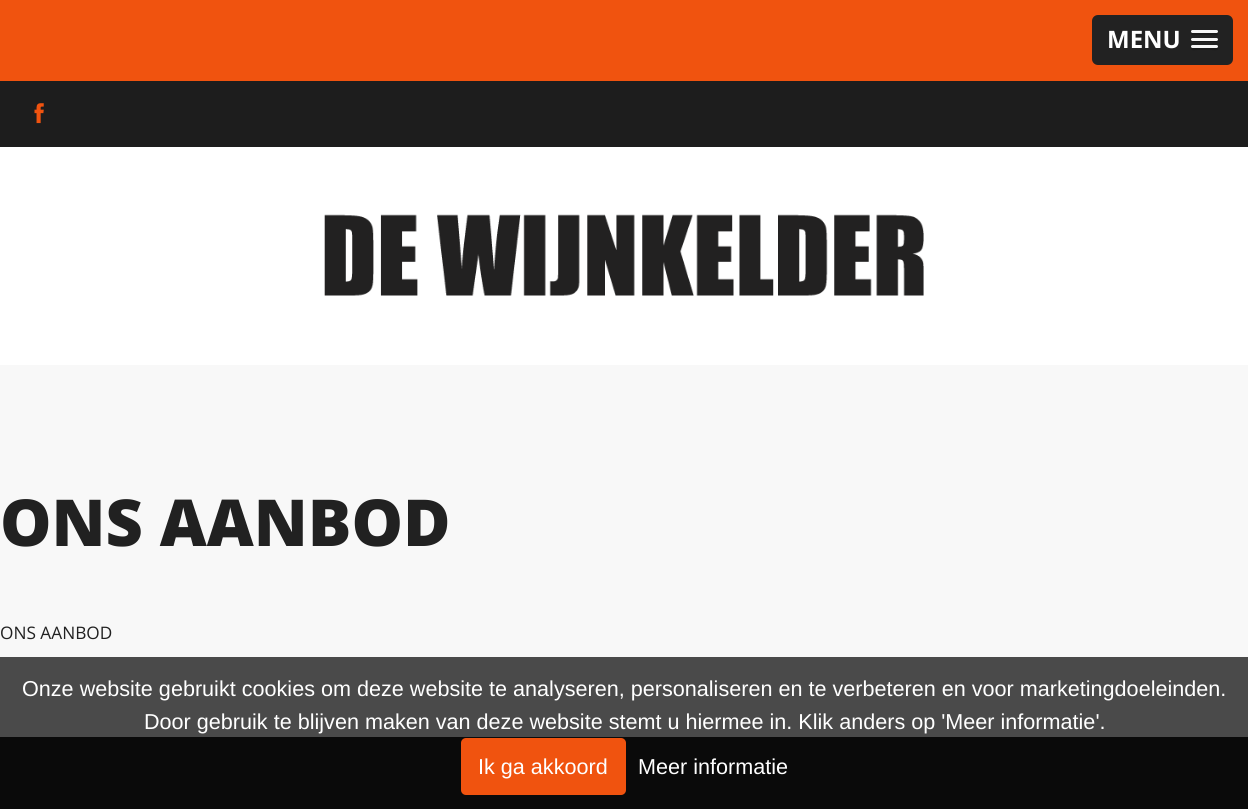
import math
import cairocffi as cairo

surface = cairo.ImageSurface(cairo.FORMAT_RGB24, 1248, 809)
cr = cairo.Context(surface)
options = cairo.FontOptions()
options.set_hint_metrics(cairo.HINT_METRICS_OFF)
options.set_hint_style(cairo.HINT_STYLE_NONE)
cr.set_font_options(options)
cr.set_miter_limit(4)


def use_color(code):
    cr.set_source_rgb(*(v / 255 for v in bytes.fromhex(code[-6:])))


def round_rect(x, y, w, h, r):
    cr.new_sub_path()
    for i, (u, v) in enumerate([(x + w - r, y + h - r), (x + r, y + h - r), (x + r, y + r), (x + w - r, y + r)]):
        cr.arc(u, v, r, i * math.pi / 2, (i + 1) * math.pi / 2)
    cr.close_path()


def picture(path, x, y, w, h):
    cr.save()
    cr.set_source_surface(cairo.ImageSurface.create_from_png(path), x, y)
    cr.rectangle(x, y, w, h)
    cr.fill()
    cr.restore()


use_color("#ffffff")
cr.paint()
use_color("#f0530f")
cr.rectangle(0, 0, 1248, 81)
cr.fill()
use_color("#222222")
round_rect(1092, 15, 141, 50, 6)
cr.fill()
cr.select_font_face("Open Sans", cairo.FONT_SLANT_NORMAL, cairo.FONT_WEIGHT_BOLD)
cr.set_font_size(24)
use_color("#ffffff")
cr.move_to(1107, 48)
cr.show_text("MENU")
use_color("#1a1a1a")
cr.new_path()
cr.move_to(1191.5, 32.5)
cr.line_to(1191, 34)
cr.curve_to(1191.5, 36, 1196, 35, 1196.5, 35)
cr.line_to(1212.5, 35)
cr.curve_to(1213, 35, 1217.5, 36, 1218, 34)
cr.line_to(1217.5, 32.5)
cr.line_to(1216.5, 33)
cr.line_to(1192.5, 33)
cr.close_path()
cr.fill()
use_color("#f5f5f5")
round_rect(1191, 30, 27, 3, 1.5)
cr.fill()
use_color("#1a1a1a")
cr.new_path()
cr.move_to(1191, 39.5)
cr.curve_to(1189.5, 43, 1196.5, 42, 1196.5, 42)
cr.line_to(1212.5, 42)
cr.curve_to(1212.5, 42, 1219.5, 43, 1218, 39.5)
cr.curve_to(1217.5, 40, 1217, 40.5, 1216.5, 40.5)
cr.line_to(1192.5, 40.5)
cr.curve_to(1192, 40.5, 1191.5, 40, 1191, 39.5)
cr.close_path()
cr.fill()
use_color("#f5f5f5")
round_rect(1191, 38, 27, 3, 1.5)
cr.fill()
use_color("#1a1a1a")
cr.new_path()
cr.move_to(1191.5, 47.5)
cr.line_to(1191, 49)
cr.curve_to(1191.5, 51, 1196, 50, 1196.5, 50)
cr.line_to(1212.5, 50)
cr.curve_to(1213, 50, 1217.5, 51, 1218, 49)
cr.line_to(1217.5, 47.5)
cr.line_to(1216.5, 48)
cr.line_to(1192.5, 48)
cr.close_path()
cr.fill()
use_color("#f5f5f5")
round_rect(1191, 45, 27, 3, 1.5)
cr.fill()
use_color("#1d1d1d")
cr.rectangle(0, 81, 1248, 66)
cr.fill()
picture("img1.png", 34, 103, 10, 21)
picture("img2.png", 324, 214, 600, 82)
use_color("#f8f8f8")
cr.rectangle(0, 365, 1248, 292)
cr.fill()
use_color("#4a4a4a")
cr.rectangle(0, 657, 1248, 80)
cr.fill()
cr.select_font_face("Open Sans ExtraBold")
cr.set_font_size(64.75)
use_color("#212121")
cr.move_to(0, 546)
cr.show_text("ONS AANBOD")
cr.select_font_face("Open Sans")
cr.set_font_size(17.25)
cr.move_to(0, 639)
cr.show_text("ONS AANBOD")
cr.select_font_face("Liberation Sans")
cr.set_font_size(21.6)
use_color("#ffffff")
cr.move_to(22, 696)
cr.show_text("Onze website gebruikt cookies om deze website te analyseren, personaliseren en te verbeteren en voor marketingdoeleinden.")
cr.move_to(144, 729)
cr.show_text("Door gebruik te blijven maken van deze website stemt u hiermee in. Klik anders op 'Meer informatie'.")
use_color("#0a0a0a")
cr.rectangle(0, 737, 1248, 72)
cr.fill()
use_color("#f0530f")
round_rect(461, 738, 165, 57, 5)
cr.fill()
use_color("#ffffff")
cr.move_to(478, 774)
cr.show_text("Ik ga akkoord")
cr.move_to(638, 774)
cr.show_text("Meer informatie")
surface.write_to_png("result.png")
